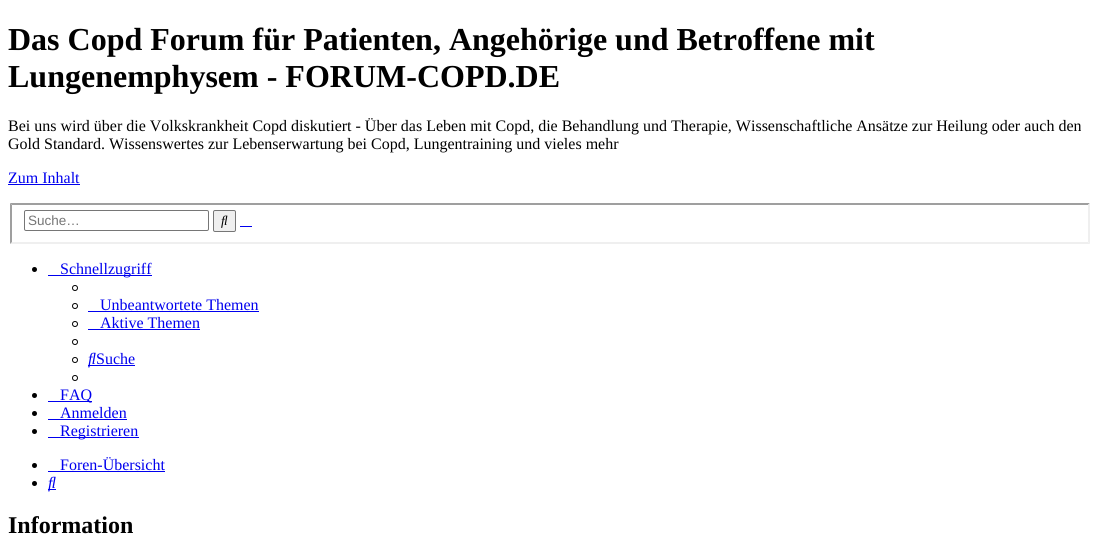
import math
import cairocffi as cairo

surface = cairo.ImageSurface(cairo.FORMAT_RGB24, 1100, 544)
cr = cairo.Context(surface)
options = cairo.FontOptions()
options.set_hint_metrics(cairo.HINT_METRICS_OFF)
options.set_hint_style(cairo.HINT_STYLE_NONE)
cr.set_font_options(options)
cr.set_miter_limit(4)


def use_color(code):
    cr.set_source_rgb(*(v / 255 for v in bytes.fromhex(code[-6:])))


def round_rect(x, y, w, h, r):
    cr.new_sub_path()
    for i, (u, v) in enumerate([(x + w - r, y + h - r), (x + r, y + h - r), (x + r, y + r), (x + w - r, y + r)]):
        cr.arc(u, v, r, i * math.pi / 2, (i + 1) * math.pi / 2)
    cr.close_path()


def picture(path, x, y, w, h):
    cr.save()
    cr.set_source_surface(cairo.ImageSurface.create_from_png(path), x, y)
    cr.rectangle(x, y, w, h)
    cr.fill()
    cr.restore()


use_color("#ffffff")
cr.paint()
cr.select_font_face("Liberation Serif", cairo.FONT_SLANT_NORMAL, cairo.FONT_WEIGHT_BOLD)
cr.set_font_size(32)
use_color("#000000")
cr.move_to(8, 50)
cr.show_text("Das Copd Forum für Patienten, Angehörige und Betroffene mit")
cr.move_to(8, 87)
cr.show_text("Lungenemphysem - FORUM-COPD.DE")
cr.select_font_face("Liberation Serif")
cr.set_font_size(16)
cr.move_to(8, 131)
cr.show_text("Bei uns wird über die Volkskrankheit Copd diskutiert - Über das Leben mit Copd, die Behandlung und Therapie, Wissenschaftliche Ansätze zur Heilung oder auch den")
cr.move_to(8, 149)
cr.show_text("Gold Standard. Wissenswertes zur Lebenserwartung bei Copd, Lungentraining und vieles mehr")
use_color("#0000ee")
cr.move_to(8, 183)
cr.show_text("Zum Inhalt")
cr.rectangle(8, 184, 72, 1)
cr.fill()
use_color("#9f9f9f")
cr.new_path()
cr.move_to(10, 203)
cr.line_to(1090, 203)
cr.line_to(1088, 205)
cr.line_to(12, 205)
cr.close_path()
cr.fill()
use_color("#efefef")
cr.new_path()
cr.move_to(1090, 203)
cr.line_to(1090, 244)
cr.line_to(1088, 242)
cr.line_to(1088, 205)
cr.close_path()
cr.fill()
cr.new_path()
cr.move_to(1090, 244)
cr.line_to(10, 244)
cr.line_to(12, 242)
cr.line_to(1088, 242)
cr.close_path()
cr.fill()
use_color("#9f9f9f")
cr.new_path()
cr.move_to(10, 244)
cr.line_to(10, 203)
cr.line_to(12, 205)
cr.line_to(12, 242)
cr.close_path()
cr.fill()
round_rect(24.5, 210.5, 184, 20, 1.5)
use_color("#767676")
cr.set_line_width(1)
cr.stroke()
cr.select_font_face("Liberation Sans")
cr.set_font_size(13.5)
use_color("#757575")
cr.move_to(28, 225)
cr.show_text("Suche…")
use_color("#efefef")
round_rect(213.5, 210.5, 22, 21, 1.5)
cr.fill_preserve()
use_color("#767676")
cr.stroke()
picture("img1.png", 221, 215, 7, 13)
use_color("#0000ee")
cr.rectangle(240, 226, 12, 1)
cr.fill()
use_color("#000000")
cr.arc(34.5, 269.5, 2.5, 0, 2 * math.pi)
cr.fill()
use_color("#0000ee")
cr.rectangle(48, 275, 104, 1)
cr.fill()
cr.select_font_face("Liberation Serif")
cr.set_font_size(16)
cr.move_to(60, 274)
cr.show_text("Schnellzugriff")
cr.new_path()
cr.arc(75, 288, 2.5, 0, 2 * math.pi)
use_color("#000000")
cr.stroke()
cr.arc(75, 306, 2.5, 0, 2 * math.pi)
cr.stroke()
use_color("#0000ee")
cr.move_to(100, 310)
cr.show_text("Unbeantwortete Themen")
cr.rectangle(88, 311, 171, 1)
cr.fill()
cr.arc(75, 324, 2.5, 0, 2 * math.pi)
use_color("#000000")
cr.stroke()
use_color("#0000ee")
cr.move_to(100, 328)
cr.show_text("Aktive Themen")
cr.rectangle(88, 329, 112, 1)
cr.fill()
cr.arc(75, 342, 2.5, 0, 2 * math.pi)
use_color("#000000")
cr.stroke()
cr.arc(75, 360, 2.5, 0, 2 * math.pi)
cr.stroke()
use_color("#0000ee")
cr.rectangle(88, 365, 47, 1)
cr.fill()
picture("img2.png", 88, 352, 8, 16)
cr.move_to(96, 364)
cr.show_text("Suche")
cr.new_path()
cr.arc(75, 378, 2.5, 0, 2 * math.pi)
use_color("#000000")
cr.stroke()
cr.arc(34.5, 395.5, 2.5, 0, 2 * math.pi)
cr.fill()
use_color("#0000ee")
cr.rectangle(48, 401, 44, 1)
cr.fill()
cr.move_to(60, 400)
cr.show_text("FAQ")
use_color("#000000")
cr.new_path()
cr.arc(34.5, 413.5, 2.5, 0, 2 * math.pi)
cr.fill()
use_color("#0000ee")
cr.move_to(60, 418)
cr.show_text("Anmelden")
cr.rectangle(48, 419, 79, 1)
cr.fill()
use_color("#000000")
cr.arc(34.5, 431.5, 2.5, 0, 2 * math.pi)
cr.fill()
use_color("#0000ee")
cr.rectangle(48, 437, 91, 1)
cr.fill()
cr.move_to(60, 436)
cr.show_text("Registrieren")
use_color("#000000")
cr.new_path()
cr.arc(34.5, 465.5, 2.5, 0, 2 * math.pi)
cr.fill()
use_color("#0000ee")
cr.move_to(60, 470)
cr.show_text("Foren-Übersicht")
cr.rectangle(48, 471, 117, 1)
cr.fill()
use_color("#000000")
cr.arc(34.5, 483.5, 2.5, 0, 2 * math.pi)
cr.fill()
use_color("#0000ee")
cr.rectangle(48, 489, 8, 1)
cr.fill()
picture("img2.png", 48, 476, 8, 16)
cr.select_font_face("Liberation Serif", cairo.FONT_SLANT_NORMAL, cairo.FONT_WEIGHT_BOLD)
cr.set_font_size(24)
use_color("#000000")
cr.move_to(8, 533)
cr.show_text("Information")
surface.write_to_png("result.png")
